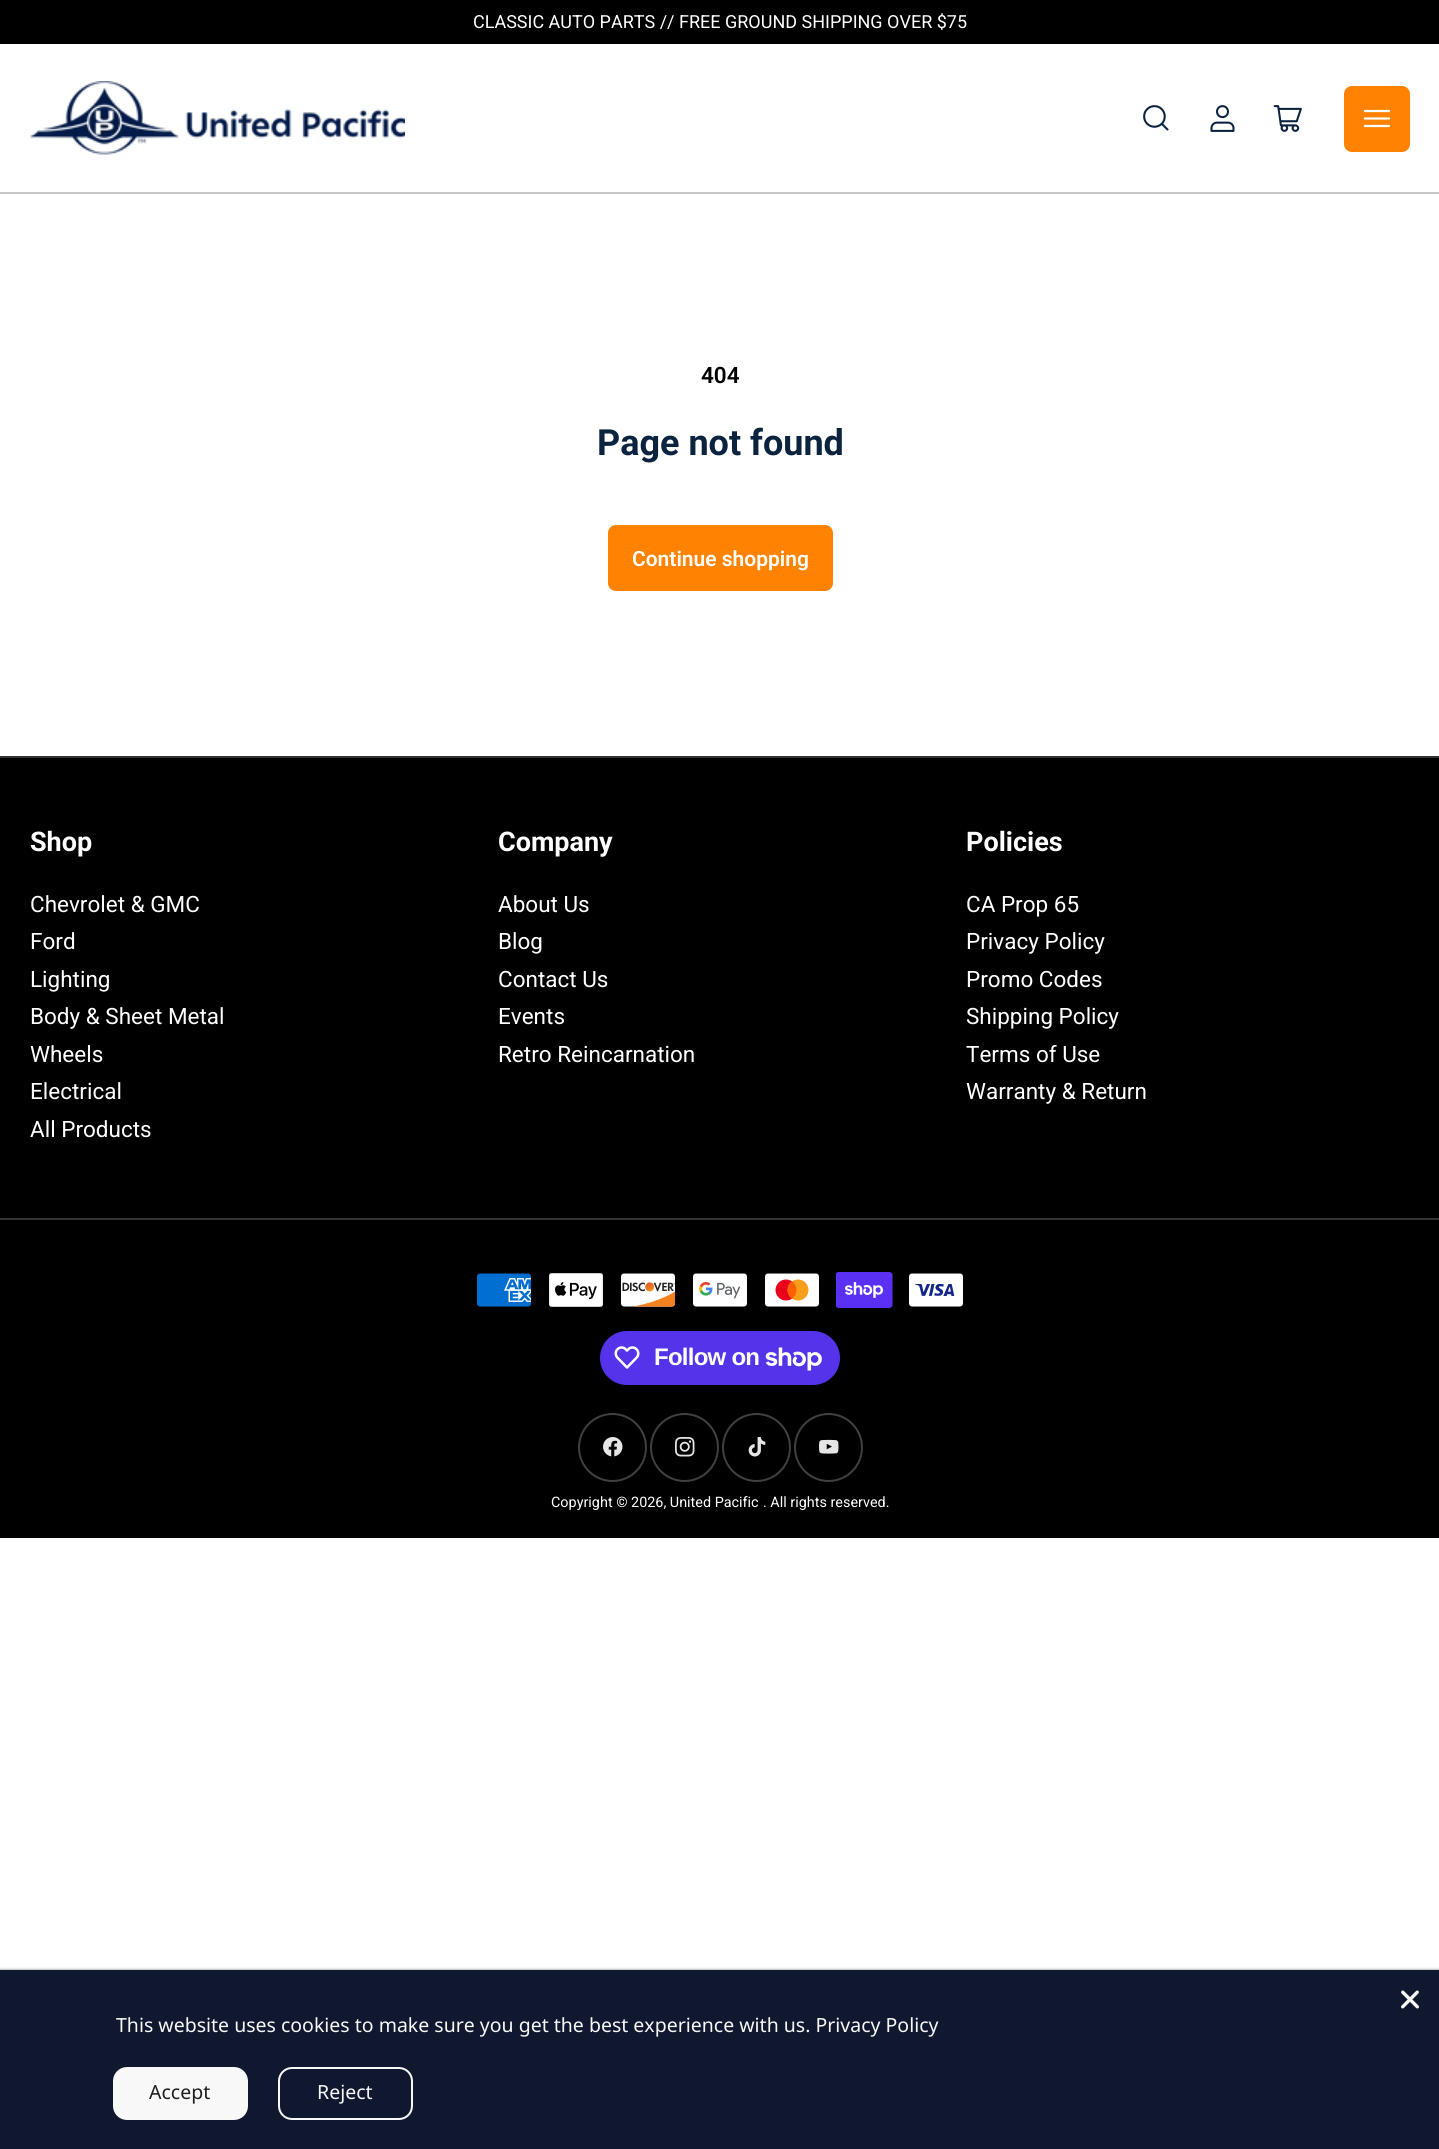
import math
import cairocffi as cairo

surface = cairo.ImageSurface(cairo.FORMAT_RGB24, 1439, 2149)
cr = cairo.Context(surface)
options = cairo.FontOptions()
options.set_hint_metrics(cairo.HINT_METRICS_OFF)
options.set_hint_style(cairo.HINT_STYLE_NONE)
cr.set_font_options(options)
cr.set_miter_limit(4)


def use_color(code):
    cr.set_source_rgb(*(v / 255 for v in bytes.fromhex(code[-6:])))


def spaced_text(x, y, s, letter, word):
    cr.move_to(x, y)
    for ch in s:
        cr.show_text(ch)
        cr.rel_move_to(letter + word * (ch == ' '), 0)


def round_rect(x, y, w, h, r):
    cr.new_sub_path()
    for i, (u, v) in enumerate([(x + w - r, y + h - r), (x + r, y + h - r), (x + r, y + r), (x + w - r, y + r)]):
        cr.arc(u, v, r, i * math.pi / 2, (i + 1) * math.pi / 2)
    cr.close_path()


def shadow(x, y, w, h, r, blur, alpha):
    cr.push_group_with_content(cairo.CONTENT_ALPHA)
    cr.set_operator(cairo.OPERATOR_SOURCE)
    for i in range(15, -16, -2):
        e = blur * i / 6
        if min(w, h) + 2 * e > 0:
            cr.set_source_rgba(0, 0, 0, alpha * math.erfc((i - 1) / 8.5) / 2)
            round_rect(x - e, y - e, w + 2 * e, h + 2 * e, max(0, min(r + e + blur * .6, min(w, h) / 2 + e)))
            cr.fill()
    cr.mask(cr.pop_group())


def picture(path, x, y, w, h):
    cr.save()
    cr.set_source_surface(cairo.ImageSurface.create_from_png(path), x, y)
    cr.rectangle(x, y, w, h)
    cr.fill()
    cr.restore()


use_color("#ffffff")
cr.paint()
use_color("#000000")
cr.rectangle(0, 0, 1439, 44)
cr.fill()
cr.select_font_face("Roboto")
cr.set_font_size(18)
use_color("#ffffff")
cr.move_to(473, 28)
cr.show_text("CLASSIC AUTO PARTS // FREE GROUND SHIPPING OVER $75")
use_color("#c8c8c8")
cr.rectangle(0, 192, 1439, 2)
cr.fill()
picture("img1.png", 30, 81, 375, 74)
picture("img2.png", 1143, 105, 26, 26)
picture("img3.png", 1210, 105, 25, 27)
picture("img4.png", 1273, 105, 29, 27)
use_color("#ff8200")
round_rect(1345, 87, 64, 64, 7)
cr.fill_preserve()
cr.stroke()
picture("img5.png", 1363, 109, 28, 19)
cr.select_font_face("Roboto SemiBold")
cr.set_font_size(22.5)
use_color("#000000")
cr.move_to(701, 383)
cr.show_text("404")
cr.select_font_face("Roboto", cairo.FONT_SLANT_NORMAL, cairo.FONT_WEIGHT_BOLD)
cr.set_font_size(36)
use_color("#0c2340")
cr.move_to(597, 455)
cr.show_text("Page not found")
use_color("#ff8200")
round_rect(609, 526, 223, 64, 7)
cr.fill_preserve()
cr.stroke()
cr.select_font_face("Roboto SemiBold")
cr.set_font_size(21)
use_color("#ffffff")
cr.move_to(632, 566)
cr.show_text("Continue shopping")
use_color("#000000")
cr.rectangle(0, 758, 1439, 460)
cr.fill()
use_color("#333333")
cr.rectangle(0, 756, 1439, 2)
cr.fill()
cr.select_font_face("Roboto", cairo.FONT_SLANT_NORMAL, cairo.FONT_WEIGHT_BOLD)
cr.set_font_size(27)
use_color("#ffffff")
cr.move_to(30, 851)
cr.show_text("Shop")
cr.select_font_face("Roboto")
cr.set_font_size(22.5)
cr.move_to(30, 912)
cr.show_text("Chevrolet & GMC")
cr.move_to(30, 949)
cr.show_text("Ford")
cr.move_to(30, 987)
cr.show_text("Lighting")
cr.move_to(30, 1024)
cr.show_text("Body & Sheet Metal")
cr.move_to(30, 1062)
cr.show_text("Wheels")
cr.move_to(30, 1099)
cr.show_text("Electrical")
cr.move_to(30, 1137)
cr.show_text("All Products")
cr.select_font_face("Roboto", cairo.FONT_SLANT_NORMAL, cairo.FONT_WEIGHT_BOLD)
cr.set_font_size(27)
cr.move_to(498, 851)
cr.show_text("Company")
cr.select_font_face("Roboto")
cr.set_font_size(22.5)
cr.move_to(498, 912)
cr.show_text("About Us")
cr.move_to(498, 949)
cr.show_text("Blog")
cr.move_to(498, 987)
cr.show_text("Contact Us")
cr.move_to(498, 1024)
cr.show_text("Events")
cr.move_to(498, 1062)
cr.show_text("Retro Reincarnation")
cr.select_font_face("Roboto", cairo.FONT_SLANT_NORMAL, cairo.FONT_WEIGHT_BOLD)
cr.set_font_size(27)
cr.move_to(966, 851)
cr.show_text("Policies")
cr.select_font_face("Roboto")
cr.set_font_size(22.5)
cr.move_to(966, 912)
cr.show_text("CA Prop 65")
cr.move_to(966, 949)
cr.show_text("Privacy Policy")
cr.move_to(966, 987)
cr.show_text("Promo Codes")
cr.move_to(966, 1024)
cr.show_text("Shipping Policy")
cr.move_to(966, 1062)
cr.show_text("Terms of Use")
cr.move_to(966, 1099)
cr.show_text("Warranty & Return")
use_color("#000000")
cr.rectangle(0, 1220, 1439, 318)
cr.fill()
use_color("#333333")
cr.rectangle(0, 1218, 1439, 2)
cr.fill()
picture("img6.png", 477, 1273, 54, 34)
picture("img7.png", 549, 1273, 54, 34)
picture("img8.png", 621, 1273, 55, 34)
picture("img9.png", 693, 1273, 54, 34)
picture("img10.png", 765, 1273, 54, 34)
picture("img11.png", 836, 1272, 57, 36)
picture("img12.png", 909, 1273, 54, 34)
use_color("#5433eb")
round_rect(600, 1331, 240, 54, 27)
cr.fill()
picture("img13.png", 614, 1346, 26, 23)
cr.select_font_face("Liberation Sans", cairo.FONT_SLANT_NORMAL, cairo.FONT_WEIGHT_BOLD)
cr.set_font_size(24)
use_color("#ffffff")
spaced_text(654, 1365, "Follow on", -0.75, 0)
picture("img14.png", 765, 1347, 57, 24)
cr.arc(612.5, 1447.5, 33.5, 0, 2 * math.pi)
use_color("#404040")
cr.stroke()
picture("img15.png", 603, 1437, 20, 20)
cr.arc(684.5, 1447.5, 33.5, 0, 2 * math.pi)
cr.stroke()
picture("img16.png", 675, 1437, 20, 20)
cr.arc(756.5, 1447.5, 33.5, 0, 2 * math.pi)
cr.stroke()
picture("img17.png", 748, 1437, 18, 20)
cr.arc(828.5, 1447.5, 33.5, 0, 2 * math.pi)
cr.stroke()
picture("img18.png", 819, 1439, 20, 15)
cr.select_font_face("Roboto")
cr.set_font_size(14.4)
use_color("#ffffff")
cr.move_to(551, 1507)
cr.show_text("Copyright © 2026, United Pacific")
cr.move_to(763, 1507)
cr.show_text(". All rights reserved.")
use_color("#000000")
shadow(0, 1970, 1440, 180, 0, 1.5, 0.5)
use_color("#10182f")
cr.rectangle(0, 1970, 1439, 179)
cr.fill()
picture("img19.png", 1401, 1990, 18, 19)
cr.select_font_face("Noto Sans")
cr.set_font_size(19.5)
use_color("#f8f8f8")
cr.move_to(116, 2032)
cr.show_text("This website uses cookies to make sure you get the best experience with us. Privacy Policy")
round_rect(113, 2067, 135, 53, 14)
cr.fill()
use_color("#1d1d1d")
cr.move_to(149, 2099)
cr.show_text("Accept")
round_rect(279, 2068, 133, 51, 13)
use_color("#f8f8f8")
cr.stroke()
cr.move_to(317, 2099)
cr.show_text("Reject")
surface.write_to_png("result.png")
